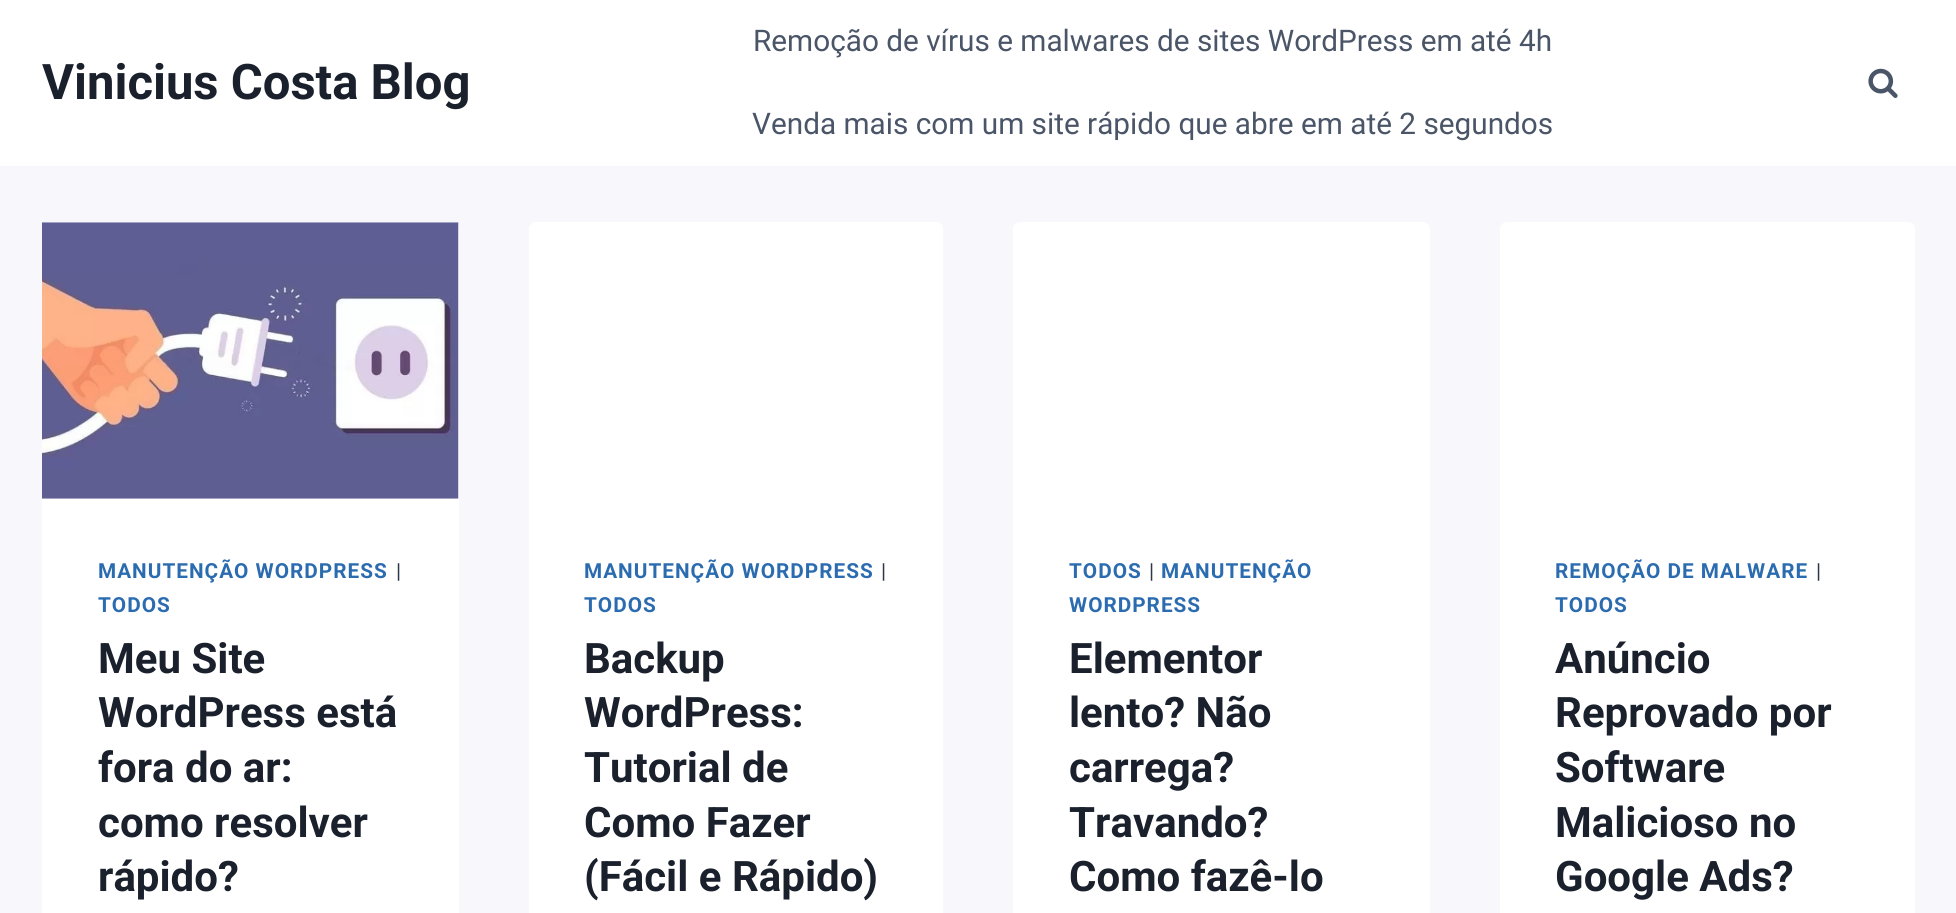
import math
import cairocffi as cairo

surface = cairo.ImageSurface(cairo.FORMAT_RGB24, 1956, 913)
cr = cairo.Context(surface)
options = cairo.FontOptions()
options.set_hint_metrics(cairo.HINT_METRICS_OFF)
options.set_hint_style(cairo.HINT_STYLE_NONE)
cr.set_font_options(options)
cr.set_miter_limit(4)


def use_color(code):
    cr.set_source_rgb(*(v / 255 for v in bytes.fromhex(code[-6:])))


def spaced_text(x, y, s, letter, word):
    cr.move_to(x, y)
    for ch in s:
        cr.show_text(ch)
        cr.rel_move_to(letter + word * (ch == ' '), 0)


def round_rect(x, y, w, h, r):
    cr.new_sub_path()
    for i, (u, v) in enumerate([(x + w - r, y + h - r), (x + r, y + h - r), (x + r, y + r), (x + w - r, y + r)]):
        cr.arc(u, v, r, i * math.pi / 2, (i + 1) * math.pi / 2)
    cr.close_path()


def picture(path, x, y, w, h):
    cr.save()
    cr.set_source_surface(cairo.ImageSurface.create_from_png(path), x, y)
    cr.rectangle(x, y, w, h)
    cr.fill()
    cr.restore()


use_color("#f7f7fc")
cr.paint()
use_color("#ffffff")
cr.rectangle(0, 0, 1956, 166)
cr.fill()
cr.select_font_face("Roboto", cairo.FONT_SLANT_NORMAL, cairo.FONT_WEIGHT_BOLD)
cr.set_font_size(49)
use_color("#1a202c")
cr.move_to(42, 99)
cr.show_text("Vinicius Costa Blog")
cr.select_font_face("Roboto")
cr.set_font_size(29.75)
use_color("#4a5568")
cr.move_to(753, 51)
cr.show_text("Remoção de vírus e malwares de sites WordPress em até 4h")
cr.move_to(752, 134)
cr.show_text("Venda mais com um site rápido que abre em até 2 segundos")
picture("img1.png", 1868, 68, 30, 30)
use_color("#ffffff")
round_rect(42, 222, 417, 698, 7)
cr.fill()
picture("img2.png", 42, 222, 417, 277)
cr.select_font_face("Roboto", cairo.FONT_SLANT_NORMAL, cairo.FONT_WEIGHT_BOLD)
cr.set_font_size(20.75)
use_color("#2b6cb0")
spaced_text(98, 578, "MANUTENÇÃO WORDPRESS", 1, 0)
cr.select_font_face("Roboto")
use_color("#2d3748")
spaced_text(396, 578, "|", 1, 0)
cr.select_font_face("Roboto", cairo.FONT_SLANT_NORMAL, cairo.FONT_WEIGHT_BOLD)
use_color("#2b6cb0")
spaced_text(98, 612, "TODOS", 1, 0)
cr.set_font_size(42)
use_color("#1a202c")
cr.move_to(98, 673)
cr.show_text("Meu Site")
cr.move_to(98, 727)
cr.show_text("WordPress está")
cr.move_to(98, 782)
cr.show_text("fora do ar:")
cr.move_to(98, 837)
cr.show_text("como resolver")
cr.move_to(98, 891)
cr.show_text("rápido?")
use_color("#ffffff")
round_rect(529, 222, 414, 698, 7)
cr.fill()
cr.set_font_size(20.75)
use_color("#2b6cb0")
spaced_text(584, 578, "MANUTENÇÃO WORDPRESS", 1, 0)
cr.select_font_face("Roboto")
use_color("#2d3748")
spaced_text(881, 578, "|", 1, 0)
cr.select_font_face("Roboto", cairo.FONT_SLANT_NORMAL, cairo.FONT_WEIGHT_BOLD)
use_color("#2b6cb0")
spaced_text(584, 612, "TODOS", 1, 0)
cr.set_font_size(42)
use_color("#1a202c")
cr.move_to(584, 673)
cr.show_text("Backup")
cr.move_to(584, 727)
cr.show_text("WordPress:")
cr.move_to(584, 782)
cr.show_text("Tutorial de")
cr.move_to(584, 837)
cr.show_text("Como Fazer")
cr.move_to(584, 891)
cr.show_text("(Fácil e Rápido)")
use_color("#ffffff")
round_rect(1013, 222, 417, 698, 7)
cr.fill()
cr.set_font_size(20.75)
use_color("#2b6cb0")
spaced_text(1069, 578, "TODOS", 1, 0)
cr.select_font_face("Roboto")
use_color("#2d3748")
spaced_text(1149, 578, "|", 1, 0)
cr.select_font_face("Roboto", cairo.FONT_SLANT_NORMAL, cairo.FONT_WEIGHT_BOLD)
use_color("#2b6cb0")
spaced_text(1161, 578, "MANUTENÇÃO", 1, 0)
spaced_text(1069, 612, "WORDPRESS", 1, 0)
cr.set_font_size(42)
use_color("#1a202c")
cr.move_to(1069, 673)
cr.show_text("Elementor")
cr.move_to(1069, 727)
cr.show_text("lento? Não")
cr.move_to(1069, 782)
cr.show_text("carrega?")
cr.move_to(1069, 837)
cr.show_text("Travando?")
cr.move_to(1069, 891)
cr.show_text("Como fazê-lo")
use_color("#ffffff")
round_rect(1500, 222, 415, 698, 7)
cr.fill()
cr.set_font_size(20.75)
use_color("#2b6cb0")
spaced_text(1555, 578, "REMOÇÃO DE MALWARE", 1, 0)
cr.select_font_face("Roboto")
use_color("#2d3748")
spaced_text(1816, 578, "|", 1, 0)
cr.select_font_face("Roboto", cairo.FONT_SLANT_NORMAL, cairo.FONT_WEIGHT_BOLD)
use_color("#2b6cb0")
spaced_text(1555, 612, "TODOS", 1, 0)
cr.set_font_size(42)
use_color("#1a202c")
cr.move_to(1555, 673)
cr.show_text("Anúncio")
cr.move_to(1555, 727)
cr.show_text("Reprovado por")
cr.move_to(1555, 782)
cr.show_text("Software")
cr.move_to(1555, 837)
cr.show_text("Malicioso no")
cr.move_to(1555, 891)
cr.show_text("Google Ads?")
surface.write_to_png("result.png")
